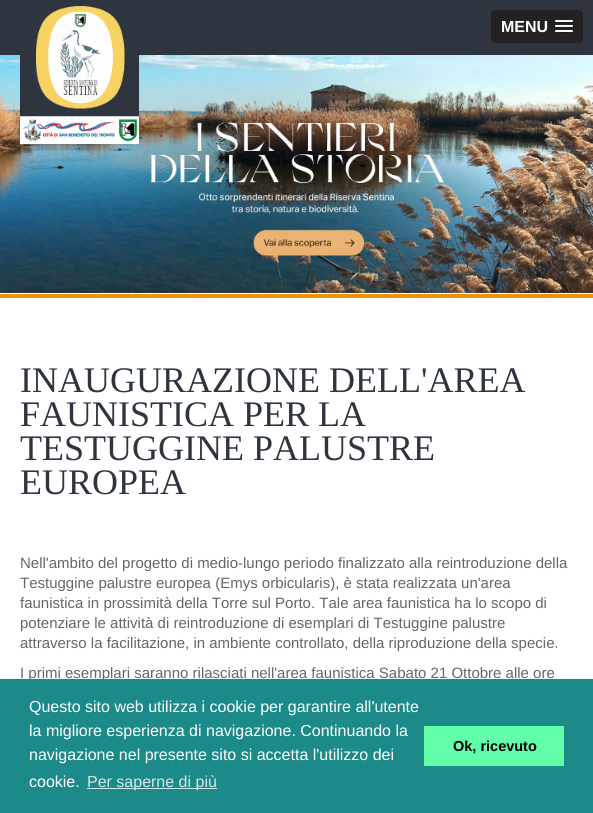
import math
import cairocffi as cairo

surface = cairo.ImageSurface(cairo.FORMAT_RGB24, 593, 813)
cr = cairo.Context(surface)
options = cairo.FontOptions()
options.set_hint_metrics(cairo.HINT_METRICS_OFF)
options.set_hint_style(cairo.HINT_STYLE_NONE)
cr.set_font_options(options)
cr.set_miter_limit(4)


def use_color(code):
    cr.set_source_rgb(*(v / 255 for v in bytes.fromhex(code[-6:])))


def round_rect(x, y, w, h, r):
    cr.new_sub_path()
    for i, (u, v) in enumerate([(x + w - r, y + h - r), (x + r, y + h - r), (x + r, y + r), (x + w - r, y + r)]):
        cr.arc(u, v, r, i * math.pi / 2, (i + 1) * math.pi / 2)
    cr.close_path()


def picture(path, x, y, w, h):
    cr.save()
    cr.set_source_surface(cairo.ImageSurface.create_from_png(path), x, y)
    cr.rectangle(x, y, w, h)
    cr.fill()
    cr.restore()


use_color("#2f353f")
cr.paint()
use_color("#222222")
round_rect(491, 10, 92, 33, 4)
cr.fill()
cr.select_font_face("Liberation Sans", cairo.FONT_SLANT_NORMAL, cairo.FONT_WEIGHT_BOLD)
cr.set_font_size(16)
use_color("#ffffff")
cr.move_to(501, 32)
cr.show_text("MENU")
use_color("#1a1a1a")
cr.new_path()
cr.move_to(555, 21.5)
cr.curve_to(554, 23.5, 558.5, 23, 558.5, 23)
cr.line_to(569.5, 23)
cr.curve_to(569.5, 23, 574, 23.5, 573, 21.5)
cr.curve_to(572, 22.5, 565.5, 22, 564, 22)
cr.curve_to(562.5, 22, 556, 22.5, 555, 21.5)
cr.close_path()
cr.fill()
use_color("#f5f5f5")
round_rect(555, 20, 18, 2, 1)
cr.fill()
use_color("#1a1a1a")
cr.new_path()
cr.move_to(555, 26.5)
cr.curve_to(554, 28.5, 558.5, 28, 558.5, 28)
cr.line_to(569.5, 28)
cr.curve_to(569.5, 28, 574, 28.5, 573, 26.5)
cr.curve_to(572, 27.5, 565.5, 27, 564, 27)
cr.curve_to(562.5, 27, 556, 27.5, 555, 26.5)
cr.close_path()
cr.fill()
use_color("#f5f5f5")
round_rect(555, 25, 18, 2, 1)
cr.fill()
use_color("#1a1a1a")
cr.new_path()
cr.move_to(555, 31.5)
cr.curve_to(554, 33.5, 558.5, 33, 558.5, 33)
cr.line_to(569.5, 33)
cr.curve_to(569.5, 33, 574, 33.5, 573, 31.5)
cr.curve_to(572, 32.5, 565.5, 32, 564, 32)
cr.curve_to(562.5, 32, 556, 32.5, 555, 31.5)
cr.close_path()
cr.fill()
use_color("#f5f5f5")
round_rect(555, 30, 18, 2, 1)
cr.fill()
use_color("#ffffff")
cr.rectangle(0, 293, 593, 386)
cr.fill()
picture("img2.png", 0, 55, 593, 238)
use_color("#2f353f")
cr.rectangle(20, 55, 119, 62)
cr.fill()
picture("img1.png", 20, 6, 119, 138)
use_color("#f08f00")
cr.rectangle(0, 294, 593, 4)
cr.fill()
cr.select_font_face("Liberation Serif")
cr.set_font_size(36)
use_color("#2f353f")
cr.move_to(20, 392)
cr.show_text("INAUGURAZIONE DELL'AREA")
cr.move_to(20, 426)
cr.show_text("FAUNISTICA PER LA")
cr.move_to(20, 460)
cr.show_text("TESTUGGINE PALUSTRE")
cr.move_to(20, 494)
cr.show_text("EUROPEA")
cr.select_font_face("Liberation Sans")
cr.set_font_size(15)
use_color("#666666")
cr.move_to(20, 568)
cr.show_text("Nell'ambito del progetto di medio-lungo periodo finalizzato alla reintroduzione della")
cr.move_to(20, 588)
cr.show_text("Testuggine palustre europea (Emys orbicularis), è stata realizzata un'area")
cr.move_to(20, 608)
cr.show_text("faunistica in prossimità della Torre sul Porto. Tale area faunistica ha lo scopo di")
cr.move_to(20, 628)
cr.show_text("potenziare le attività di reintroduzione di esemplari di Testuggine palustre")
cr.move_to(20, 648)
cr.show_text("attraverso la facilitazione, in ambiente controllato, della riproduzione della specie.")
cr.move_to(20, 678)
cr.show_text("I primi esemplari saranno rilasciati nell'area faunistica Sabato 21 Ottobre alle ore")
use_color("#1d8a8a")
cr.rectangle(0, 679, 593, 134)
cr.fill()
cr.set_font_size(16)
use_color("#ffffff")
cr.move_to(29, 712)
cr.show_text("Questo sito web utilizza i cookie per garantire all'utente")
cr.move_to(29, 736)
cr.show_text("la migliore esperienza di navigazione. Continuando la")
cr.move_to(29, 760)
cr.show_text("navigazione nel presente sito si accetta l'utilizzo dei")
cr.move_to(29, 787)
cr.show_text("cookie.")
use_color("#d2e8e8")
cr.rectangle(87, 788, 130, 1)
cr.fill()
cr.move_to(87, 787)
cr.show_text("Per saperne di più")
use_color("#62ffaa")
cr.rectangle(424, 726, 140, 40)
cr.fill()
cr.select_font_face("Liberation Sans", cairo.FONT_SLANT_NORMAL, cairo.FONT_WEIGHT_BOLD)
cr.set_font_size(14.5)
use_color("#000000")
cr.move_to(453, 751)
cr.show_text("Ok, ricevuto")
surface.write_to_png("result.png")
